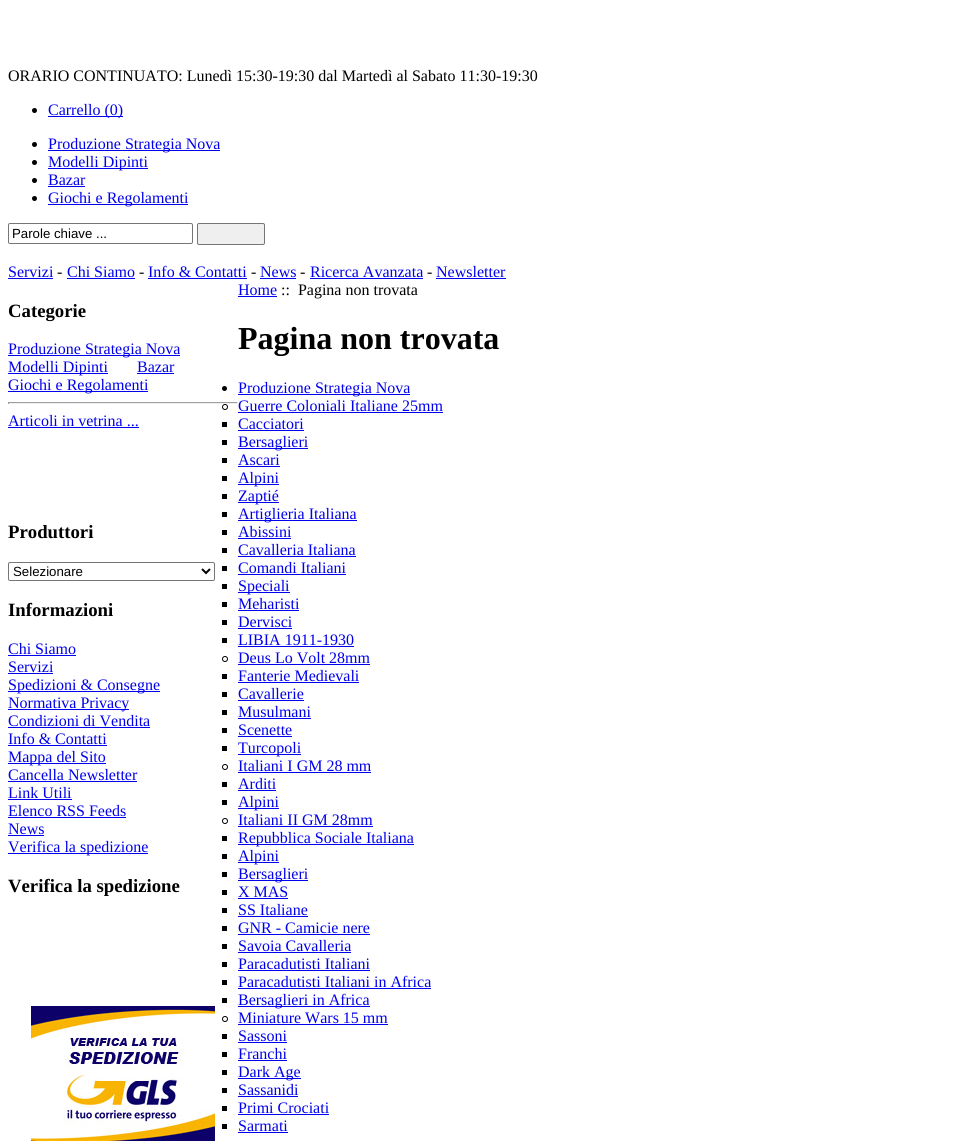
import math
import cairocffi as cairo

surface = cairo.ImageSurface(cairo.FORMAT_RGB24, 959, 1141)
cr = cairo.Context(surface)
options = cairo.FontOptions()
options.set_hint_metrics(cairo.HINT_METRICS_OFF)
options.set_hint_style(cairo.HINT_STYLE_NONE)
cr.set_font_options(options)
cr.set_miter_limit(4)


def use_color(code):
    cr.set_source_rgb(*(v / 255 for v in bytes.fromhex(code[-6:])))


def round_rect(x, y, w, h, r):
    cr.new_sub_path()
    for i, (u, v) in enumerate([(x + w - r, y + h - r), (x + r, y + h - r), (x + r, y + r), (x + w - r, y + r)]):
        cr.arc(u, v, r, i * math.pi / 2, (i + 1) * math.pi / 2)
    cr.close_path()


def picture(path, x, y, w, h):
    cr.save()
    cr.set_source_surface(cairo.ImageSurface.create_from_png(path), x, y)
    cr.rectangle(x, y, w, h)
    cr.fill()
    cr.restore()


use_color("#ffffff")
cr.paint()
cr.select_font_face("Liberation Serif")
cr.set_font_size(16)
use_color("#000000")
cr.move_to(8, 81)
cr.show_text("ORARIO CONTINUATO: Lunedì 15:30-19:30 dal Martedì al Sabato 11:30-19:30")
cr.new_path()
cr.arc(34.5, 110.5, 2.5, 0, 2 * math.pi)
cr.fill()
use_color("#0000ee")
cr.rectangle(48, 116, 75, 1)
cr.fill()
cr.move_to(48, 115)
cr.show_text("Carrello (0)")
use_color("#000000")
cr.new_path()
cr.arc(34.5, 144.5, 2.5, 0, 2 * math.pi)
cr.fill()
use_color("#0000ee")
cr.rectangle(48, 150, 172, 1)
cr.fill()
cr.move_to(48, 149)
cr.show_text("Produzione Strategia Nova")
use_color("#000000")
cr.new_path()
cr.arc(34.5, 162.5, 2.5, 0, 2 * math.pi)
cr.fill()
use_color("#0000ee")
cr.rectangle(48, 168, 100, 1)
cr.fill()
cr.move_to(48, 167)
cr.show_text("Modelli Dipinti")
use_color("#000000")
cr.new_path()
cr.arc(34.5, 180.5, 2.5, 0, 2 * math.pi)
cr.fill()
use_color("#0000ee")
cr.move_to(48, 185)
cr.show_text("Bazar")
cr.rectangle(48, 186, 37, 1)
cr.fill()
use_color("#000000")
cr.arc(34.5, 198.5, 2.5, 0, 2 * math.pi)
cr.fill()
use_color("#0000ee")
cr.rectangle(48, 204, 140, 1)
cr.fill()
cr.move_to(48, 203)
cr.show_text("Giochi e Regolamenti")
round_rect(8.5, 223.5, 184, 20, 1.5)
use_color("#767676")
cr.set_line_width(1)
cr.stroke()
cr.select_font_face("Liberation Sans")
cr.set_font_size(13.25)
use_color("#000000")
cr.move_to(12, 238)
cr.show_text("Parole chiave ...")
use_color("#efefef")
round_rect(197.5, 223.5, 67, 21, 1.5)
cr.fill_preserve()
use_color("#767676")
cr.stroke()
cr.select_font_face("Liberation Serif")
cr.set_font_size(16)
use_color("#0000ee")
cr.move_to(8, 277)
cr.show_text("Servizi")
cr.rectangle(8, 278, 45, 1)
cr.fill()
use_color("#000000")
cr.move_to(57, 277)
cr.show_text("-")
use_color("#0000ee")
cr.move_to(67, 277)
cr.show_text("Chi Siamo")
cr.rectangle(67, 278, 68, 1)
cr.fill()
use_color("#000000")
cr.move_to(139, 277)
cr.show_text("-")
use_color("#0000ee")
cr.move_to(148, 277)
cr.show_text("Info & Contatti")
cr.rectangle(148, 278, 99, 1)
cr.fill()
use_color("#000000")
cr.move_to(251, 277)
cr.show_text("-")
use_color("#0000ee")
cr.move_to(260, 277)
cr.show_text("News")
cr.rectangle(260, 278, 36, 1)
cr.fill()
use_color("#000000")
cr.move_to(300, 277)
cr.show_text("-")
use_color("#0000ee")
cr.move_to(310, 277)
cr.show_text("Ricerca Avanzata")
cr.rectangle(310, 278, 113, 1)
cr.fill()
use_color("#000000")
cr.move_to(427, 277)
cr.show_text("-")
use_color("#0000ee")
cr.move_to(436, 277)
cr.show_text("Newsletter")
cr.rectangle(436, 278, 70, 1)
cr.fill()
cr.select_font_face("Liberation Serif", cairo.FONT_SLANT_NORMAL, cairo.FONT_WEIGHT_BOLD)
cr.set_font_size(18.75)
use_color("#000000")
cr.move_to(8, 317)
cr.show_text("Categorie")
use_color("#0000ee")
cr.rectangle(8, 355, 172, 1)
cr.fill()
cr.select_font_face("Liberation Serif")
cr.set_font_size(16)
cr.move_to(8, 354)
cr.show_text("Produzione Strategia Nova")
cr.rectangle(8, 373, 100, 1)
cr.fill()
cr.move_to(8, 372)
cr.show_text("Modelli Dipinti")
cr.move_to(137, 372)
cr.show_text("Bazar")
cr.rectangle(137, 373, 37, 1)
cr.fill()
cr.rectangle(8, 391, 140, 1)
cr.fill()
cr.move_to(8, 390)
cr.show_text("Giochi e Regolamenti")
use_color("#9f9f9f")
cr.rectangle(8, 402, 230, 1)
cr.fill()
use_color("#eeeeee")
cr.rectangle(237, 402, 1, 2)
cr.fill()
cr.rectangle(8, 403, 230, 1)
cr.fill()
use_color("#9f9f9f")
cr.rectangle(8, 402, 1, 2)
cr.fill()
use_color("#0000ee")
cr.move_to(8, 426)
cr.show_text("Articoli in vetrina ...")
cr.rectangle(8, 427, 131, 1)
cr.fill()
cr.select_font_face("Liberation Serif", cairo.FONT_SLANT_NORMAL, cairo.FONT_WEIGHT_BOLD)
cr.set_font_size(18.75)
use_color("#000000")
cr.move_to(8, 538)
cr.show_text("Produttori")
round_rect(8.5, 562.5, 206, 18, 1.5)
use_color("#767676")
cr.stroke()
cr.new_path()
cr.move_to(202, 569)
cr.line_to(206, 573)
cr.line_to(210, 569)
use_color("#000000")
cr.set_line_width(2)
cr.stroke()
cr.select_font_face("Liberation Sans")
cr.set_font_size(13.25)
cr.move_to(13, 576)
cr.show_text("Selezionare")
cr.select_font_face("Liberation Serif", cairo.FONT_SLANT_NORMAL, cairo.FONT_WEIGHT_BOLD)
cr.set_font_size(18.75)
cr.move_to(8, 616)
cr.show_text("Informazioni")
cr.select_font_face("Liberation Serif")
cr.set_font_size(16)
use_color("#0000ee")
cr.move_to(8, 654)
cr.show_text("Chi Siamo")
cr.rectangle(8, 655, 68, 1)
cr.fill()
cr.move_to(8, 672)
cr.show_text("Servizi")
cr.rectangle(8, 673, 45, 1)
cr.fill()
cr.rectangle(8, 691, 152, 1)
cr.fill()
cr.move_to(8, 690)
cr.show_text("Spedizioni & Consegne")
cr.rectangle(8, 709, 121, 1)
cr.fill()
cr.move_to(8, 708)
cr.show_text("Normativa Privacy")
cr.move_to(8, 726)
cr.show_text("Condizioni di Vendita")
cr.rectangle(8, 727, 142, 1)
cr.fill()
cr.move_to(8, 744)
cr.show_text("Info & Contatti")
cr.rectangle(8, 745, 99, 1)
cr.fill()
cr.rectangle(8, 763, 98, 1)
cr.fill()
cr.move_to(8, 762)
cr.show_text("Mappa del Sito")
cr.move_to(8, 780)
cr.show_text("Cancella Newsletter")
cr.rectangle(8, 781, 129, 1)
cr.fill()
cr.move_to(8, 798)
cr.show_text("Link Utili")
cr.rectangle(8, 799, 64, 1)
cr.fill()
cr.move_to(8, 816)
cr.show_text("Elenco RSS Feeds")
cr.rectangle(8, 817, 118, 1)
cr.fill()
cr.move_to(8, 834)
cr.show_text("News")
cr.rectangle(8, 835, 36, 1)
cr.fill()
cr.rectangle(8, 853, 140, 1)
cr.fill()
cr.move_to(8, 852)
cr.show_text("Verifica la spedizione")
cr.select_font_face("Liberation Serif", cairo.FONT_SLANT_NORMAL, cairo.FONT_WEIGHT_BOLD)
cr.set_font_size(18.75)
use_color("#000000")
cr.move_to(8, 892)
cr.show_text("Verifica la spedizione")
picture("img1.png", 31, 1006, 184, 135)
cr.select_font_face("Liberation Serif")
cr.set_font_size(16)
use_color("#0000ee")
cr.move_to(238, 295)
cr.show_text("Home")
cr.rectangle(238, 296, 39, 1)
cr.fill()
use_color("#000000")
cr.move_to(281, 295)
cr.show_text("::  Pagina non trovata")
cr.select_font_face("Liberation Serif", cairo.FONT_SLANT_NORMAL, cairo.FONT_WEIGHT_BOLD)
cr.set_font_size(32)
cr.move_to(238, 349)
cr.show_text("Pagina non trovata")
cr.new_path()
cr.arc(224.5, 388.5, 2.5, 0, 2 * math.pi)
cr.fill()
use_color("#0000ee")
cr.rectangle(238, 394, 172, 1)
cr.fill()
cr.select_font_face("Liberation Serif")
cr.set_font_size(16)
cr.move_to(238, 393)
cr.show_text("Produzione Strategia Nova")
cr.new_path()
cr.arc(225, 407, 2.5, 0, 2 * math.pi)
use_color("#000000")
cr.set_line_width(1)
cr.stroke()
use_color("#0000ee")
cr.move_to(238, 411)
cr.show_text("Guerre Coloniali Italiane 25mm")
cr.rectangle(238, 412, 205, 1)
cr.fill()
use_color("#000000")
cr.rectangle(222, 422, 5, 5)
cr.fill()
use_color("#0000ee")
cr.move_to(238, 429)
cr.show_text("Cacciatori")
cr.rectangle(238, 430, 66, 1)
cr.fill()
use_color("#000000")
cr.rectangle(222, 440, 5, 5)
cr.fill()
use_color("#0000ee")
cr.rectangle(238, 448, 70, 1)
cr.fill()
cr.move_to(238, 447)
cr.show_text("Bersaglieri")
use_color("#000000")
cr.rectangle(222, 458, 5, 5)
cr.fill()
use_color("#0000ee")
cr.move_to(238, 465)
cr.show_text("Ascari")
cr.rectangle(238, 466, 42, 1)
cr.fill()
use_color("#000000")
cr.rectangle(222, 476, 5, 5)
cr.fill()
use_color("#0000ee")
cr.rectangle(238, 484, 41, 1)
cr.fill()
cr.move_to(238, 483)
cr.show_text("Alpini")
use_color("#000000")
cr.rectangle(222, 494, 5, 5)
cr.fill()
use_color("#0000ee")
cr.rectangle(238, 502, 41, 1)
cr.fill()
cr.move_to(238, 501)
cr.show_text("Zaptié")
use_color("#000000")
cr.rectangle(222, 512, 5, 5)
cr.fill()
use_color("#0000ee")
cr.rectangle(238, 520, 119, 1)
cr.fill()
cr.move_to(238, 519)
cr.show_text("Artiglieria Italiana")
use_color("#000000")
cr.rectangle(222, 530, 5, 5)
cr.fill()
use_color("#0000ee")
cr.move_to(238, 537)
cr.show_text("Abissini")
cr.rectangle(238, 538, 53, 1)
cr.fill()
use_color("#000000")
cr.rectangle(222, 548, 5, 5)
cr.fill()
use_color("#0000ee")
cr.move_to(238, 555)
cr.show_text("Cavalleria Italiana")
cr.rectangle(238, 556, 118, 1)
cr.fill()
use_color("#000000")
cr.rectangle(222, 566, 5, 5)
cr.fill()
use_color("#0000ee")
cr.move_to(238, 573)
cr.show_text("Comandi Italiani")
cr.rectangle(238, 574, 108, 1)
cr.fill()
use_color("#000000")
cr.rectangle(222, 584, 5, 5)
cr.fill()
use_color("#0000ee")
cr.rectangle(238, 592, 52, 1)
cr.fill()
cr.move_to(238, 591)
cr.show_text("Speciali")
use_color("#000000")
cr.rectangle(222, 602, 5, 5)
cr.fill()
use_color("#0000ee")
cr.move_to(238, 609)
cr.show_text("Meharisti")
cr.rectangle(238, 610, 61, 1)
cr.fill()
use_color("#000000")
cr.rectangle(222, 620, 5, 5)
cr.fill()
use_color("#0000ee")
cr.move_to(238, 627)
cr.show_text("Dervisci")
cr.rectangle(238, 628, 54, 1)
cr.fill()
use_color("#000000")
cr.rectangle(222, 638, 5, 5)
cr.fill()
use_color("#0000ee")
cr.move_to(238, 645)
cr.show_text("LIBIA 1911-1930")
cr.rectangle(238, 646, 116, 1)
cr.fill()
cr.arc(225, 659, 2.5, 0, 2 * math.pi)
use_color("#000000")
cr.stroke()
use_color("#0000ee")
cr.move_to(238, 663)
cr.show_text("Deus Lo Volt 28mm")
cr.rectangle(238, 664, 132, 1)
cr.fill()
use_color("#000000")
cr.rectangle(222, 674, 5, 5)
cr.fill()
use_color("#0000ee")
cr.move_to(238, 681)
cr.show_text("Fanterie Medievali")
cr.rectangle(238, 682, 121, 1)
cr.fill()
use_color("#000000")
cr.rectangle(222, 692, 5, 5)
cr.fill()
use_color("#0000ee")
cr.move_to(238, 699)
cr.show_text("Cavallerie")
cr.rectangle(238, 700, 66, 1)
cr.fill()
use_color("#000000")
cr.rectangle(222, 710, 5, 5)
cr.fill()
use_color("#0000ee")
cr.move_to(238, 717)
cr.show_text("Musulmani")
cr.rectangle(238, 718, 73, 1)
cr.fill()
use_color("#000000")
cr.rectangle(222, 728, 5, 5)
cr.fill()
use_color("#0000ee")
cr.move_to(238, 735)
cr.show_text("Scenette")
cr.rectangle(238, 736, 54, 1)
cr.fill()
use_color("#000000")
cr.rectangle(222, 746, 5, 5)
cr.fill()
use_color("#0000ee")
cr.rectangle(238, 754, 63, 1)
cr.fill()
cr.move_to(238, 753)
cr.show_text("Turcopoli")
cr.new_path()
cr.arc(225, 767, 2.5, 0, 2 * math.pi)
use_color("#000000")
cr.stroke()
use_color("#0000ee")
cr.move_to(238, 771)
cr.show_text("Italiani I GM 28 mm")
cr.rectangle(238, 772, 133, 1)
cr.fill()
use_color("#000000")
cr.rectangle(222, 782, 5, 5)
cr.fill()
use_color("#0000ee")
cr.move_to(238, 789)
cr.show_text("Arditi")
cr.rectangle(238, 790, 38, 1)
cr.fill()
use_color("#000000")
cr.rectangle(222, 800, 5, 5)
cr.fill()
use_color("#0000ee")
cr.rectangle(238, 808, 41, 1)
cr.fill()
cr.move_to(238, 807)
cr.show_text("Alpini")
cr.new_path()
cr.arc(225, 821, 2.5, 0, 2 * math.pi)
use_color("#000000")
cr.stroke()
use_color("#0000ee")
cr.move_to(238, 825)
cr.show_text("Italiani II GM 28mm")
cr.rectangle(238, 826, 135, 1)
cr.fill()
use_color("#000000")
cr.rectangle(222, 836, 5, 5)
cr.fill()
use_color("#0000ee")
cr.rectangle(238, 844, 176, 1)
cr.fill()
cr.move_to(238, 843)
cr.show_text("Repubblica Sociale Italiana")
use_color("#000000")
cr.rectangle(222, 854, 5, 5)
cr.fill()
use_color("#0000ee")
cr.rectangle(238, 862, 41, 1)
cr.fill()
cr.move_to(238, 861)
cr.show_text("Alpini")
use_color("#000000")
cr.rectangle(222, 872, 5, 5)
cr.fill()
use_color("#0000ee")
cr.rectangle(238, 880, 70, 1)
cr.fill()
cr.move_to(238, 879)
cr.show_text("Bersaglieri")
use_color("#000000")
cr.rectangle(222, 890, 5, 5)
cr.fill()
use_color("#0000ee")
cr.move_to(238, 897)
cr.show_text("X MAS")
cr.rectangle(238, 898, 50, 1)
cr.fill()
use_color("#000000")
cr.rectangle(222, 908, 5, 5)
cr.fill()
use_color("#0000ee")
cr.move_to(238, 915)
cr.show_text("SS Italiane")
cr.rectangle(238, 916, 70, 1)
cr.fill()
use_color("#000000")
cr.rectangle(222, 926, 5, 5)
cr.fill()
use_color("#0000ee")
cr.move_to(238, 933)
cr.show_text("GNR - Camicie nere")
cr.rectangle(238, 934, 132, 1)
cr.fill()
use_color("#000000")
cr.rectangle(222, 944, 5, 5)
cr.fill()
use_color("#0000ee")
cr.move_to(238, 951)
cr.show_text("Savoia Cavalleria")
cr.rectangle(238, 952, 113, 1)
cr.fill()
use_color("#000000")
cr.rectangle(222, 962, 5, 5)
cr.fill()
use_color("#0000ee")
cr.move_to(238, 969)
cr.show_text("Paracadutisti Italiani")
cr.rectangle(238, 970, 132, 1)
cr.fill()
use_color("#000000")
cr.rectangle(222, 980, 5, 5)
cr.fill()
use_color("#0000ee")
cr.move_to(238, 987)
cr.show_text("Paracadutisti Italiani in Africa")
cr.rectangle(238, 988, 193, 1)
cr.fill()
use_color("#000000")
cr.rectangle(222, 998, 5, 5)
cr.fill()
use_color("#0000ee")
cr.rectangle(238, 1006, 132, 1)
cr.fill()
cr.move_to(238, 1005)
cr.show_text("Bersaglieri in Africa")
cr.new_path()
cr.arc(225, 1019, 2.5, 0, 2 * math.pi)
use_color("#000000")
cr.stroke()
use_color("#0000ee")
cr.move_to(238, 1023)
cr.show_text("Miniature Wars 15 mm")
cr.rectangle(238, 1024, 150, 1)
cr.fill()
use_color("#000000")
cr.rectangle(222, 1034, 5, 5)
cr.fill()
use_color("#0000ee")
cr.move_to(238, 1041)
cr.show_text("Sassoni")
cr.rectangle(238, 1042, 49, 1)
cr.fill()
use_color("#000000")
cr.rectangle(222, 1052, 5, 5)
cr.fill()
use_color("#0000ee")
cr.move_to(238, 1059)
cr.show_text("Franchi")
cr.rectangle(238, 1060, 49, 1)
cr.fill()
use_color("#000000")
cr.rectangle(222, 1070, 5, 5)
cr.fill()
use_color("#0000ee")
cr.rectangle(238, 1078, 63, 1)
cr.fill()
cr.move_to(238, 1077)
cr.show_text("Dark Age")
use_color("#000000")
cr.rectangle(222, 1088, 5, 5)
cr.fill()
use_color("#0000ee")
cr.move_to(238, 1095)
cr.show_text("Sassanidi")
cr.rectangle(238, 1096, 60, 1)
cr.fill()
use_color("#000000")
cr.rectangle(222, 1106, 5, 5)
cr.fill()
use_color("#0000ee")
cr.move_to(238, 1113)
cr.show_text("Primi Crociati")
cr.rectangle(238, 1114, 91, 1)
cr.fill()
use_color("#000000")
cr.rectangle(222, 1124, 5, 5)
cr.fill()
use_color("#0000ee")
cr.move_to(238, 1131)
cr.show_text("Sarmati")
cr.rectangle(238, 1132, 50, 1)
cr.fill()
surface.write_to_png("result.png")
